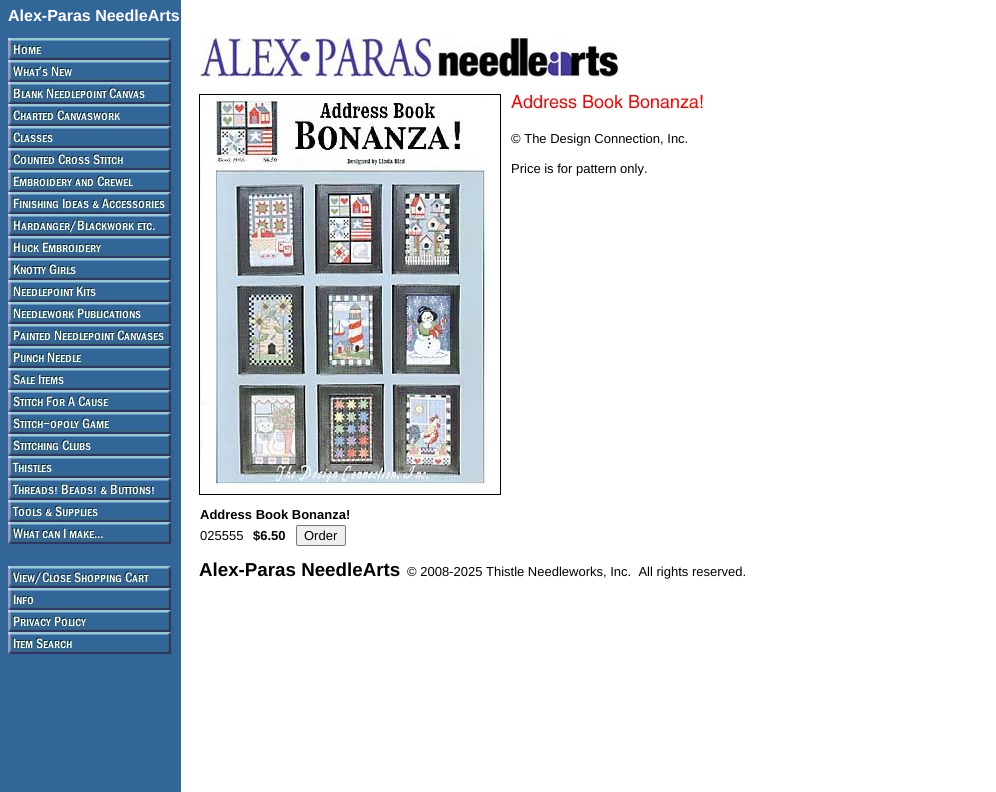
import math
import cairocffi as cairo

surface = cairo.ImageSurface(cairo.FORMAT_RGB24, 996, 792)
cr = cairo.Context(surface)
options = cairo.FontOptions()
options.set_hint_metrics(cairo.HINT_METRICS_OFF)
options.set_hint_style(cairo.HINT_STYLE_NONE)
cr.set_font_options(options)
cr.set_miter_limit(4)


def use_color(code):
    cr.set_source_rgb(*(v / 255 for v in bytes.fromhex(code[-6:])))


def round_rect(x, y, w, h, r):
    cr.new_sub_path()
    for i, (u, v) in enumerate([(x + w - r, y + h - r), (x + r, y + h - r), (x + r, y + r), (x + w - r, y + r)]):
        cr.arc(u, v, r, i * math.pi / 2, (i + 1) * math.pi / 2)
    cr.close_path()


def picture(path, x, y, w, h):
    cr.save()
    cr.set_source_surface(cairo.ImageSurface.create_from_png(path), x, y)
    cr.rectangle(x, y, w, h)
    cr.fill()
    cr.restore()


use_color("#ffffff")
cr.paint()
picture("img1.png", 0, 0, 183, 792)
cr.select_font_face("Liberation Sans", cairo.FONT_SLANT_NORMAL, cairo.FONT_WEIGHT_BOLD)
cr.set_font_size(16)
use_color("#ffffff")
cr.move_to(8, 21)
cr.show_text("Alex-Paras NeedleArts")
picture("img2.png", 8, 38, 165, 616)
picture("img3.png", 199, 38, 420, 39)
cr.rectangle(199.5, 94.5, 301, 400)
use_color("#000000")
cr.set_line_width(1)
cr.stroke()
picture("img4.png", 200, 95, 288, 396)
picture("img5.png", 511, 94, 193, 16)
cr.select_font_face("Liberation Sans")
cr.set_font_size(13)
cr.move_to(511, 143)
cr.show_text("© The Design Connection, Inc.")
cr.move_to(511, 173)
cr.show_text("Price is for pattern only.")
cr.select_font_face("Liberation Sans", cairo.FONT_SLANT_NORMAL, cairo.FONT_WEIGHT_BOLD)
cr.move_to(200, 519)
cr.show_text("Address Book Bonanza!")
cr.select_font_face("Liberation Sans")
cr.move_to(200, 540)
cr.show_text("025555")
cr.select_font_face("Liberation Sans", cairo.FONT_SLANT_NORMAL, cairo.FONT_WEIGHT_BOLD)
cr.move_to(253, 540)
cr.show_text("$6.50")
use_color("#efefef")
round_rect(296.5, 525.5, 49, 20, 1.5)
cr.fill_preserve()
use_color("#767676")
cr.stroke()
cr.select_font_face("Liberation Sans")
use_color("#000000")
cr.move_to(304, 540)
cr.show_text("Order")
cr.select_font_face("Liberation Sans", cairo.FONT_SLANT_NORMAL, cairo.FONT_WEIGHT_BOLD)
cr.set_font_size(18.75)
cr.move_to(199, 576)
cr.show_text("Alex-Paras NeedleArts")
cr.select_font_face("Liberation Sans")
cr.set_font_size(13)
cr.move_to(407, 576)
cr.show_text("© 2008-2025 Thistle Needleworks, Inc.  All rights reserved.")
surface.write_to_png("result.png")
